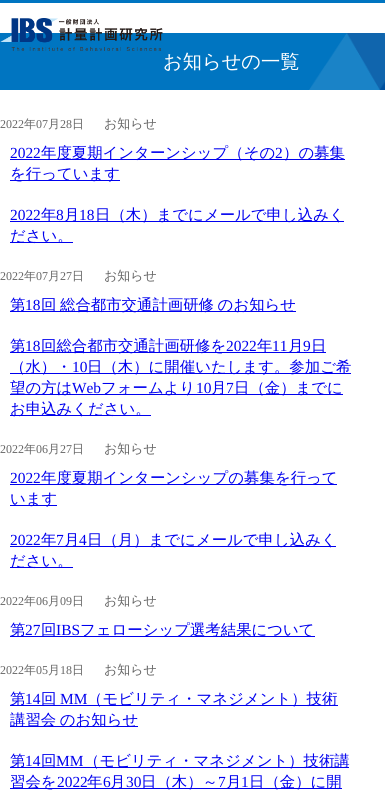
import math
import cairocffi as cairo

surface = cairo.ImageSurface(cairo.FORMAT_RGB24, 385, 794)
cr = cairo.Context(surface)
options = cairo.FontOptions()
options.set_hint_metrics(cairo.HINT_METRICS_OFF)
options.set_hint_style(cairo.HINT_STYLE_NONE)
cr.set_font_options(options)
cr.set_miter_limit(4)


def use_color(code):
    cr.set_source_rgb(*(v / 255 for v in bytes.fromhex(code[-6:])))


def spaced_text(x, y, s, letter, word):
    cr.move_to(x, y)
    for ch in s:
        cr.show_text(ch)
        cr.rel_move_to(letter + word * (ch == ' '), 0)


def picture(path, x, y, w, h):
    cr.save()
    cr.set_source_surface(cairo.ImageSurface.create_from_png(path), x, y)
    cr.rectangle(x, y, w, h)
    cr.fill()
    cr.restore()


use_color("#ffffff")
cr.paint()
use_color("#0075c1")
cr.rectangle(0, 0, 385, 3)
cr.fill()
cr.rectangle(0, 33, 385, 57)
cr.fill()
picture("img1.png", 0, 18, 163, 33)
picture("img2.png", 309, 33, 76, 57)
cr.select_font_face("WenQuanYi Zen Hei Medium")
cr.set_font_size(19.25)
use_color("#ffffff")
cr.move_to(163, 68)
cr.show_text("お知らせの一覧")
cr.select_font_face("Liberation Serif")
cr.set_font_size(12)
use_color("#666666")
cr.move_to(0, 128)
cr.show_text("2022")
cr.select_font_face("WenQuanYi Zen Hei Medium")
cr.move_to(24, 128)
cr.show_text("年")
cr.select_font_face("Liberation Serif")
cr.move_to(36, 128)
cr.show_text("07")
cr.select_font_face("WenQuanYi Zen Hei Medium")
cr.move_to(48, 128)
cr.show_text("月")
cr.select_font_face("Liberation Serif")
cr.move_to(60, 128)
cr.show_text("28")
cr.select_font_face("WenQuanYi Zen Hei Medium")
cr.move_to(72, 128)
cr.show_text("日")
cr.set_font_size(13)
cr.move_to(104, 128)
cr.show_text("お知らせ")
cr.select_font_face("Liberation Serif")
cr.set_font_size(15.4)
use_color("#0000ee")
cr.move_to(10, 158)
cr.show_text("2022")
cr.rectangle(10, 159, 335, 1)
cr.fill()
cr.select_font_face("WenQuanYi Zen Hei Medium")
cr.move_to(41, 158)
cr.show_text("年度夏期インターンシップ（その")
cr.select_font_face("Liberation Serif")
cr.move_to(275, 158)
cr.show_text("2")
cr.select_font_face("WenQuanYi Zen Hei Medium")
cr.move_to(283, 158)
cr.show_text("）の募集")
cr.rectangle(10, 180, 110, 1)
cr.fill()
cr.move_to(10, 179)
cr.show_text("を行っています")
cr.select_font_face("Liberation Serif")
cr.move_to(10, 220)
cr.show_text("2022")
cr.rectangle(10, 221, 334, 1)
cr.fill()
cr.select_font_face("WenQuanYi Zen Hei Medium")
cr.move_to(41, 220)
cr.show_text("年")
cr.select_font_face("Liberation Serif")
cr.move_to(56, 220)
cr.show_text("8")
cr.select_font_face("WenQuanYi Zen Hei Medium")
cr.move_to(64, 220)
cr.show_text("月")
cr.select_font_face("Liberation Serif")
cr.move_to(79, 220)
cr.show_text("18")
cr.select_font_face("WenQuanYi Zen Hei Medium")
cr.move_to(95, 220)
cr.show_text("日（木）までにメールで申し込みく")
cr.rectangle(10, 242, 63, 1)
cr.fill()
cr.move_to(10, 241)
cr.show_text("ださい。")
cr.select_font_face("Liberation Serif")
cr.set_font_size(12)
use_color("#666666")
cr.move_to(0, 280)
cr.show_text("2022")
cr.select_font_face("WenQuanYi Zen Hei Medium")
cr.move_to(24, 280)
cr.show_text("年")
cr.select_font_face("Liberation Serif")
cr.move_to(36, 280)
cr.show_text("07")
cr.select_font_face("WenQuanYi Zen Hei Medium")
cr.move_to(48, 280)
cr.show_text("月")
cr.select_font_face("Liberation Serif")
cr.move_to(60, 280)
cr.show_text("27")
cr.select_font_face("WenQuanYi Zen Hei Medium")
cr.move_to(72, 280)
cr.show_text("日")
cr.set_font_size(13)
cr.move_to(104, 280)
cr.show_text("お知らせ")
use_color("#0000ee")
cr.rectangle(10, 311, 286, 1)
cr.fill()
cr.set_font_size(15.4)
cr.move_to(10, 310)
cr.show_text("第")
cr.select_font_face("Liberation Serif")
cr.move_to(25, 310)
cr.show_text("18")
cr.select_font_face("WenQuanYi Zen Hei Medium")
spaced_text(41, 310, "回 総合都市交通計画研修 のお知らせ", 0, -1)
cr.rectangle(10, 352, 316, 1)
cr.fill()
cr.move_to(10, 351)
cr.show_text("第")
cr.select_font_face("Liberation Serif")
cr.move_to(25, 351)
cr.show_text("18")
cr.select_font_face("WenQuanYi Zen Hei Medium")
cr.move_to(41, 351)
cr.show_text("回総合都市交通計画研修を")
cr.select_font_face("Liberation Serif")
cr.move_to(226, 351)
cr.show_text("2022")
cr.select_font_face("WenQuanYi Zen Hei Medium")
cr.move_to(257, 351)
cr.show_text("年")
cr.select_font_face("Liberation Serif")
cr.move_to(272, 351)
cr.show_text("11")
cr.select_font_face("WenQuanYi Zen Hei Medium")
cr.move_to(288, 351)
cr.show_text("月")
cr.select_font_face("Liberation Serif")
cr.move_to(303, 351)
cr.show_text("9")
cr.select_font_face("WenQuanYi Zen Hei Medium")
cr.move_to(311, 351)
cr.show_text("日")
cr.rectangle(10, 373, 341, 1)
cr.fill()
cr.move_to(10, 372)
cr.show_text("（水）・")
cr.select_font_face("Liberation Serif")
cr.move_to(72, 372)
cr.show_text("10")
cr.select_font_face("WenQuanYi Zen Hei Medium")
cr.move_to(87, 372)
cr.show_text("日（木）に開催いたします。参加ご希")
cr.rectangle(10, 394, 333, 1)
cr.fill()
cr.move_to(10, 393)
cr.show_text("望の方は")
cr.select_font_face("Liberation Serif")
cr.move_to(72, 393)
cr.show_text("Web")
cr.select_font_face("WenQuanYi Zen Hei Medium")
cr.move_to(101, 393)
cr.show_text("フォームより")
cr.select_font_face("Liberation Serif")
cr.move_to(196, 393)
cr.show_text("10")
cr.select_font_face("WenQuanYi Zen Hei Medium")
cr.move_to(211, 393)
cr.show_text("月")
cr.select_font_face("Liberation Serif")
cr.move_to(226, 393)
cr.show_text("7")
cr.select_font_face("WenQuanYi Zen Hei Medium")
cr.move_to(234, 393)
cr.show_text("日（金）までに")
cr.rectangle(10, 415, 141, 1)
cr.fill()
cr.move_to(10, 414)
cr.show_text("お申込みください。")
cr.select_font_face("Liberation Serif")
cr.set_font_size(12)
use_color("#666666")
cr.move_to(0, 453)
cr.show_text("2022")
cr.select_font_face("WenQuanYi Zen Hei Medium")
cr.move_to(24, 453)
cr.show_text("年")
cr.select_font_face("Liberation Serif")
cr.move_to(36, 453)
cr.show_text("06")
cr.select_font_face("WenQuanYi Zen Hei Medium")
cr.move_to(48, 453)
cr.show_text("月")
cr.select_font_face("Liberation Serif")
cr.move_to(60, 453)
cr.show_text("27")
cr.select_font_face("WenQuanYi Zen Hei Medium")
cr.move_to(72, 453)
cr.show_text("日")
cr.set_font_size(13)
cr.move_to(104, 453)
cr.show_text("お知らせ")
cr.select_font_face("Liberation Serif")
cr.set_font_size(15.4)
use_color("#0000ee")
cr.move_to(10, 483)
cr.show_text("2022")
cr.rectangle(10, 484, 327, 1)
cr.fill()
cr.select_font_face("WenQuanYi Zen Hei Medium")
cr.move_to(41, 483)
cr.show_text("年度夏期インターンシップの募集を行って")
cr.rectangle(10, 505, 47, 1)
cr.fill()
cr.move_to(10, 504)
cr.show_text("います")
cr.select_font_face("Liberation Serif")
cr.move_to(10, 545)
cr.show_text("2022")
cr.rectangle(10, 546, 326, 1)
cr.fill()
cr.select_font_face("WenQuanYi Zen Hei Medium")
cr.move_to(41, 545)
cr.show_text("年")
cr.select_font_face("Liberation Serif")
cr.move_to(56, 545)
cr.show_text("7")
cr.select_font_face("WenQuanYi Zen Hei Medium")
cr.move_to(64, 545)
cr.show_text("月")
cr.select_font_face("Liberation Serif")
cr.move_to(79, 545)
cr.show_text("4")
cr.select_font_face("WenQuanYi Zen Hei Medium")
cr.move_to(87, 545)
cr.show_text("日（月）までにメールで申し込みく")
cr.rectangle(10, 567, 63, 1)
cr.fill()
cr.move_to(10, 566)
cr.show_text("ださい。")
cr.select_font_face("Liberation Serif")
cr.set_font_size(12)
use_color("#666666")
cr.move_to(0, 605)
cr.show_text("2022")
cr.select_font_face("WenQuanYi Zen Hei Medium")
cr.move_to(24, 605)
cr.show_text("年")
cr.select_font_face("Liberation Serif")
cr.move_to(36, 605)
cr.show_text("06")
cr.select_font_face("WenQuanYi Zen Hei Medium")
cr.move_to(48, 605)
cr.show_text("月")
cr.select_font_face("Liberation Serif")
cr.move_to(60, 605)
cr.show_text("09")
cr.select_font_face("WenQuanYi Zen Hei Medium")
cr.move_to(72, 605)
cr.show_text("日")
cr.set_font_size(13)
cr.move_to(104, 605)
cr.show_text("お知らせ")
use_color("#0000ee")
cr.rectangle(10, 636, 305, 1)
cr.fill()
cr.set_font_size(15.4)
cr.move_to(10, 635)
cr.show_text("第")
cr.select_font_face("Liberation Serif")
cr.move_to(25, 635)
cr.show_text("27")
cr.select_font_face("WenQuanYi Zen Hei Medium")
cr.move_to(41, 635)
cr.show_text("回")
cr.select_font_face("Liberation Serif")
cr.move_to(56, 635)
cr.show_text("IBS")
cr.select_font_face("WenQuanYi Zen Hei Medium")
cr.move_to(80, 635)
cr.show_text("フェローシップ選考結果について")
cr.select_font_face("Liberation Serif")
cr.set_font_size(12)
use_color("#666666")
cr.move_to(0, 674)
cr.show_text("2022")
cr.select_font_face("WenQuanYi Zen Hei Medium")
cr.move_to(24, 674)
cr.show_text("年")
cr.select_font_face("Liberation Serif")
cr.move_to(36, 674)
cr.show_text("05")
cr.select_font_face("WenQuanYi Zen Hei Medium")
cr.move_to(48, 674)
cr.show_text("月")
cr.select_font_face("Liberation Serif")
cr.move_to(60, 674)
cr.show_text("18")
cr.select_font_face("WenQuanYi Zen Hei Medium")
cr.move_to(72, 674)
cr.show_text("日")
cr.set_font_size(13)
cr.move_to(104, 674)
cr.show_text("お知らせ")
use_color("#0000ee")
cr.rectangle(10, 705, 328, 1)
cr.fill()
cr.set_font_size(15.4)
cr.move_to(10, 704)
cr.show_text("第")
cr.select_font_face("Liberation Serif")
cr.move_to(25, 704)
cr.show_text("14")
cr.select_font_face("WenQuanYi Zen Hei Medium")
cr.move_to(41, 704)
cr.show_text("回")
cr.select_font_face("Liberation Serif")
cr.move_to(60, 704)
cr.show_text("MM")
cr.select_font_face("WenQuanYi Zen Hei Medium")
cr.move_to(87, 704)
cr.show_text("（モビリティ・マネジメント）技術")
cr.rectangle(10, 726, 128, 1)
cr.fill()
spaced_text(10, 725, "講習会 のお知らせ", 0, -1)
cr.rectangle(10, 767, 339, 1)
cr.fill()
cr.move_to(10, 766)
cr.show_text("第")
cr.select_font_face("Liberation Serif")
cr.move_to(25, 766)
cr.show_text("14")
cr.select_font_face("WenQuanYi Zen Hei Medium")
cr.move_to(41, 766)
cr.show_text("回")
cr.select_font_face("Liberation Serif")
cr.move_to(56, 766)
cr.show_text("MM")
cr.select_font_face("WenQuanYi Zen Hei Medium")
cr.move_to(84, 766)
cr.show_text("（モビリティ・マネジメント）技術講")
cr.rectangle(10, 788, 332, 1)
cr.fill()
cr.move_to(10, 787)
cr.show_text("習会を")
cr.select_font_face("Liberation Serif")
cr.move_to(57, 787)
cr.show_text("2022")
cr.select_font_face("WenQuanYi Zen Hei Medium")
cr.move_to(87, 787)
cr.show_text("年")
cr.select_font_face("Liberation Serif")
cr.move_to(103, 787)
cr.show_text("6")
cr.select_font_face("WenQuanYi Zen Hei Medium")
cr.move_to(110, 787)
cr.show_text("月")
cr.select_font_face("Liberation Serif")
cr.move_to(126, 787)
cr.show_text("30")
cr.select_font_face("WenQuanYi Zen Hei Medium")
cr.move_to(141, 787)
cr.show_text("日（木）～")
cr.select_font_face("Liberation Serif")
cr.move_to(218, 787)
cr.show_text("7")
cr.select_font_face("WenQuanYi Zen Hei Medium")
cr.move_to(226, 787)
cr.show_text("月")
cr.select_font_face("Liberation Serif")
cr.move_to(241, 787)
cr.show_text("1")
cr.select_font_face("WenQuanYi Zen Hei Medium")
cr.move_to(249, 787)
cr.show_text("日（金）に開")
surface.write_to_png("result.png")
